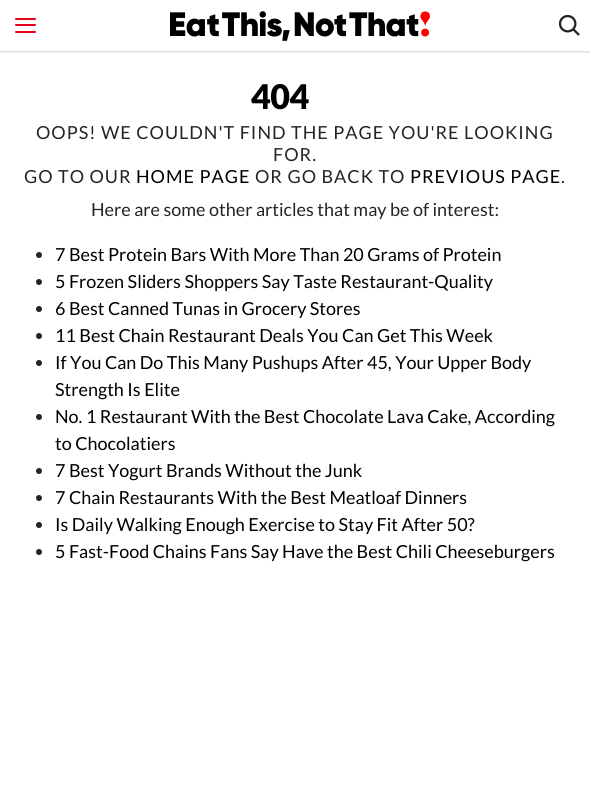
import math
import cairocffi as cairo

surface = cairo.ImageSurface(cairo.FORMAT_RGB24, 590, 803)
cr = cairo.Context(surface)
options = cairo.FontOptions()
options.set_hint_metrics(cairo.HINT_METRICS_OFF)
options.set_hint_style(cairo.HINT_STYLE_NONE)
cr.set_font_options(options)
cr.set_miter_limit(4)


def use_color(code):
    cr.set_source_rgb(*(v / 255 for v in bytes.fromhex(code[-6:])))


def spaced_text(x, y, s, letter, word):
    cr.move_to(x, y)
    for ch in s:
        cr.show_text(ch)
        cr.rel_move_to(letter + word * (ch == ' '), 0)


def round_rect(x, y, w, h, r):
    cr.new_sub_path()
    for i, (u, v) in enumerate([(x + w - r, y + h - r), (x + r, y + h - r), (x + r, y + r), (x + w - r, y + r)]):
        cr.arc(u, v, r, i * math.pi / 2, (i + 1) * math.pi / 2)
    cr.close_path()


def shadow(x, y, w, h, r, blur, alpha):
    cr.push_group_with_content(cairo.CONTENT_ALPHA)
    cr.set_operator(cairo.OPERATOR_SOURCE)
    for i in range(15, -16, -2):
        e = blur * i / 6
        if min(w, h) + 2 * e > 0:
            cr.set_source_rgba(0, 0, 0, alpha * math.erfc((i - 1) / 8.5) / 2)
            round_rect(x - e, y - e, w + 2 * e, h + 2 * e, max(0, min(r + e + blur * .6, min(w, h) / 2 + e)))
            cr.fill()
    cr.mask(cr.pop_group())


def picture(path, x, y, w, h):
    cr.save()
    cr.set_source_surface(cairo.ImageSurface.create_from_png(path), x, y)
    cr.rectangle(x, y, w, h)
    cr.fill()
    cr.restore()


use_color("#ffffff")
cr.paint()
cr.save()
cr.rectangle(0, 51, 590, 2)
cr.clip()
use_color("#000000")
shadow(0, 1, 590, 51, 0, 1.5, 0.09)
shadow(0, 1, 590, 51, 0, 1.5, 0.09)
cr.restore()
use_color("#e8021d")
round_rect(15, 18, 21, 2, 1)
cr.fill()
round_rect(15, 24, 21, 2, 1)
cr.fill()
round_rect(15, 31, 21, 2, 1)
cr.fill()
picture("img1.png", 170, 11, 260, 30)
picture("img2.png", 558, 14, 22, 22)
cr.select_font_face("Lato Black")
cr.set_font_size(34)
use_color("#000000")
spaced_text(251, 109, "404", -0.5, 0)
cr.select_font_face("Lato")
cr.set_font_size(18)
use_color("#212529")
spaced_text(36, 139, "OOPS! WE COULDN'T FIND THE PAGE YOU'RE LOOKING", 1, 0)
spaced_text(273, 161, "FOR.", 1, 0)
spaced_text(24, 183, "GO TO OUR", 1, 0)
use_color("#000000")
spaced_text(136, 183, "HOME PAGE", 1, 0)
use_color("#212529")
spaced_text(255, 183, "OR GO BACK TO", 1, 0)
use_color("#000000")
spaced_text(410, 183, "PREVIOUS PAGE", 1, 0)
use_color("#212529")
spaced_text(561, 183, ".", 1, 0)
cr.move_to(91, 216)
cr.show_text("Here are some other articles that may be of interest:")
cr.new_path()
cr.arc(39, 255, 3, 0, 2 * math.pi)
cr.fill()
use_color("#000000")
cr.move_to(55, 261)
cr.show_text("7 Best Protein Bars With More Than 20 Grams of Protein")
use_color("#212529")
cr.new_path()
cr.arc(39, 282, 3, 0, 2 * math.pi)
cr.fill()
use_color("#000000")
cr.move_to(55, 288)
cr.show_text("5 Frozen Sliders Shoppers Say Taste Restaurant-Quality")
use_color("#212529")
cr.new_path()
cr.arc(39, 309, 3, 0, 2 * math.pi)
cr.fill()
use_color("#000000")
cr.move_to(55, 315)
cr.show_text("6 Best Canned Tunas in Grocery Stores")
use_color("#212529")
cr.new_path()
cr.arc(39, 336, 3, 0, 2 * math.pi)
cr.fill()
use_color("#000000")
cr.move_to(55, 342)
cr.show_text("11 Best Chain Restaurant Deals You Can Get This Week")
use_color("#212529")
cr.new_path()
cr.arc(39, 363, 3, 0, 2 * math.pi)
cr.fill()
use_color("#000000")
cr.move_to(55, 369)
cr.show_text("If You Can Do This Many Pushups After 45, Your Upper Body")
cr.move_to(55, 396)
cr.show_text("Strength Is Elite")
use_color("#212529")
cr.new_path()
cr.arc(39, 417, 3, 0, 2 * math.pi)
cr.fill()
use_color("#000000")
cr.move_to(55, 423)
cr.show_text("No. 1 Restaurant With the Best Chocolate Lava Cake, According")
cr.move_to(55, 450)
cr.show_text("to Chocolatiers")
use_color("#212529")
cr.new_path()
cr.arc(39, 471, 3, 0, 2 * math.pi)
cr.fill()
use_color("#000000")
cr.move_to(55, 477)
cr.show_text("7 Best Yogurt Brands Without the Junk")
use_color("#212529")
cr.new_path()
cr.arc(39, 498, 3, 0, 2 * math.pi)
cr.fill()
use_color("#000000")
cr.move_to(55, 504)
cr.show_text("7 Chain Restaurants With the Best Meatloaf Dinners")
use_color("#212529")
cr.new_path()
cr.arc(39, 525, 3, 0, 2 * math.pi)
cr.fill()
use_color("#000000")
cr.move_to(55, 531)
cr.show_text("Is Daily Walking Enough Exercise to Stay Fit After 50?")
use_color("#212529")
cr.new_path()
cr.arc(39, 552, 3, 0, 2 * math.pi)
cr.fill()
use_color("#000000")
cr.move_to(55, 558)
cr.show_text("5 Fast-Food Chains Fans Say Have the Best Chili Cheeseburgers")
surface.write_to_png("result.png")
